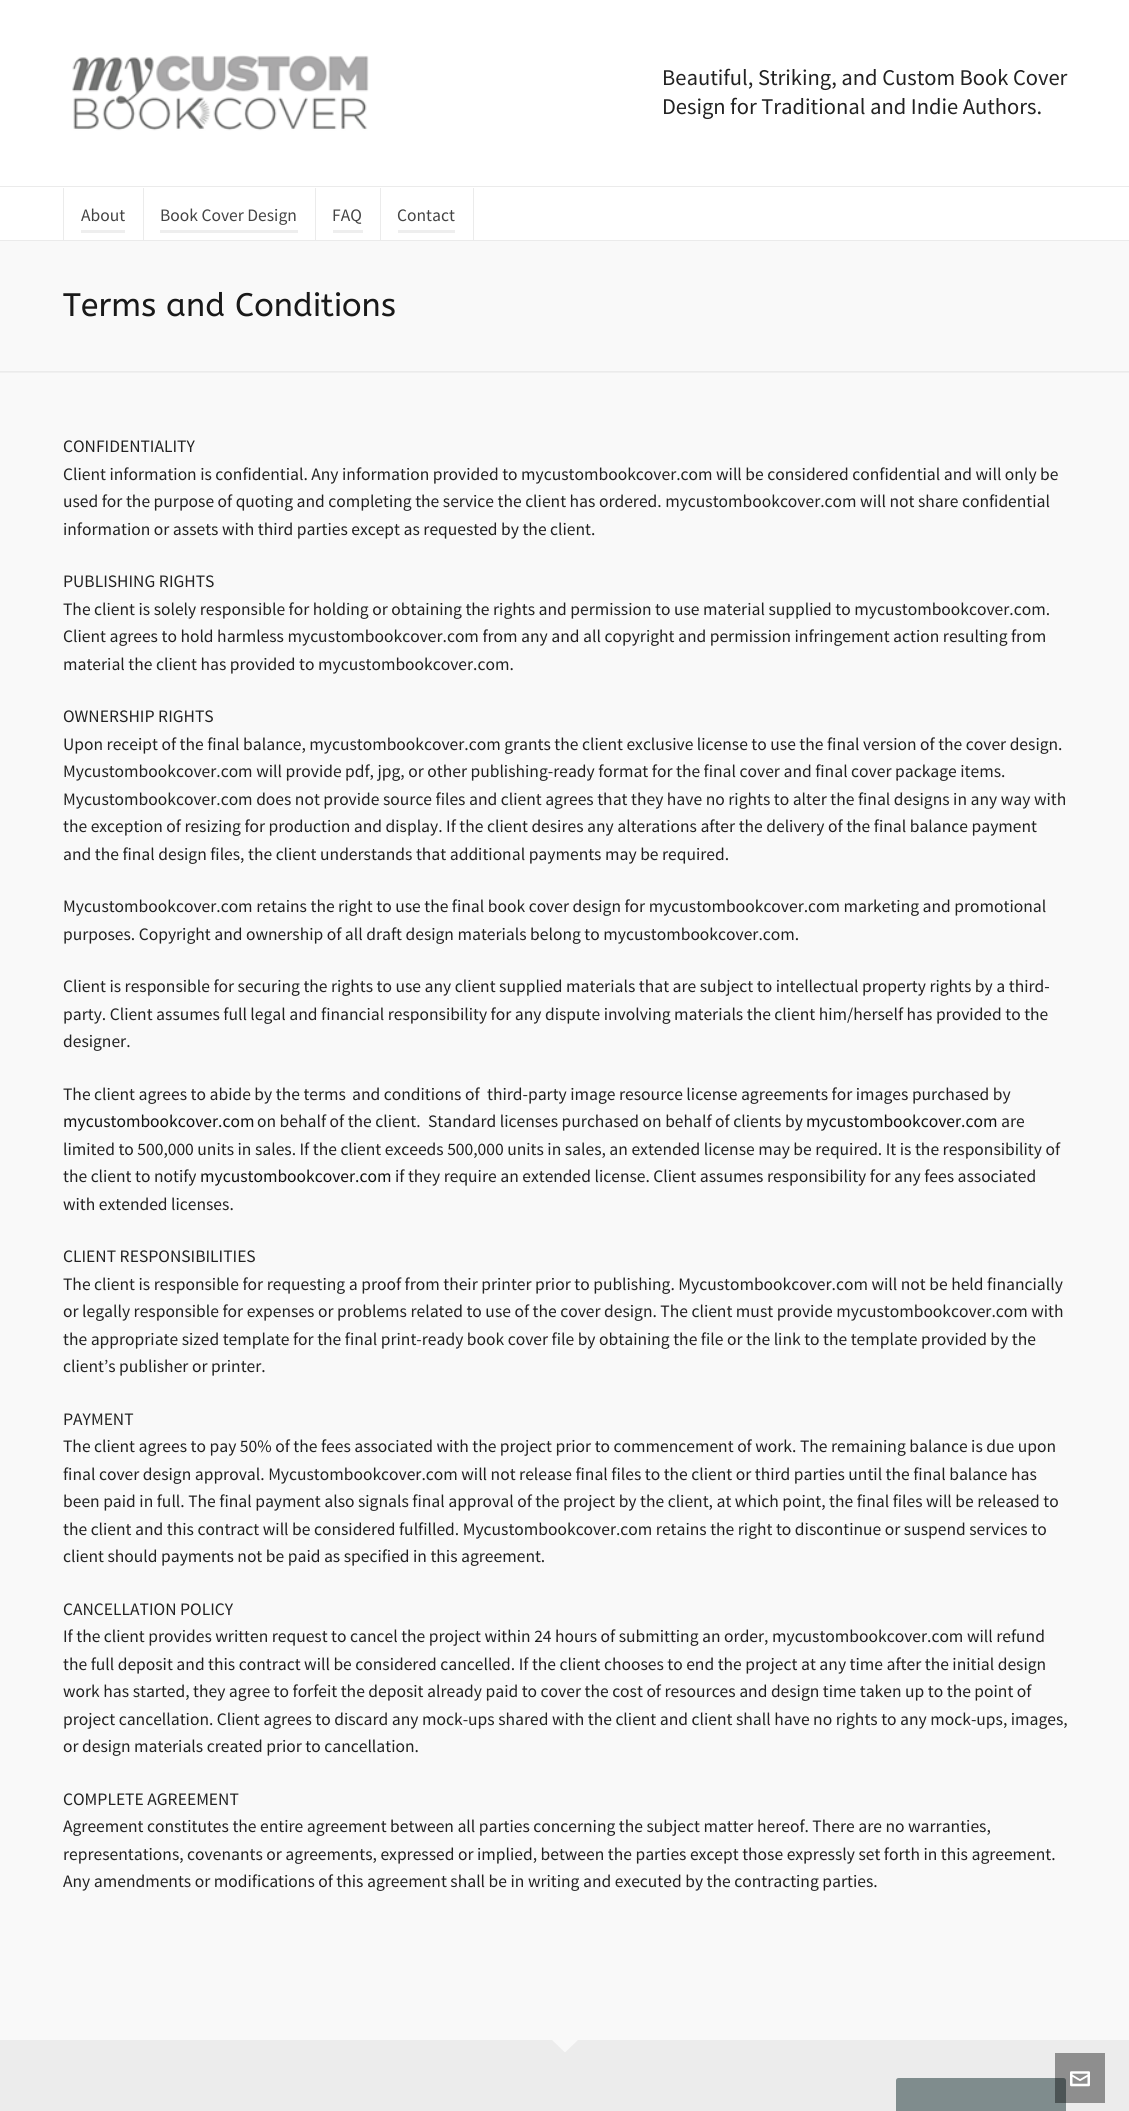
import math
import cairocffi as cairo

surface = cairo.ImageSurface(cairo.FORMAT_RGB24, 1129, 2111)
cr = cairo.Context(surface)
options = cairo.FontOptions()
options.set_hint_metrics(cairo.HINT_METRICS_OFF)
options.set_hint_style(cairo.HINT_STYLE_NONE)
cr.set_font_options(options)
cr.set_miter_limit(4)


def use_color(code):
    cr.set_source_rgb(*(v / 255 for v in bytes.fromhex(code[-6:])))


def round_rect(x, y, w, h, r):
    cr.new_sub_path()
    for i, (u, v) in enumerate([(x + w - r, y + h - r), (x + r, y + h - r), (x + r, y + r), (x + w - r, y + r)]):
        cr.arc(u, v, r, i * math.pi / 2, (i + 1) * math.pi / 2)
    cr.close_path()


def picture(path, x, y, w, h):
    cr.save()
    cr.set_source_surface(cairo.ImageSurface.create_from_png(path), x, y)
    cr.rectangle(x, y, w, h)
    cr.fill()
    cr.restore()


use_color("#f9f9f9")
cr.paint()
use_color("#ffffff")
cr.rectangle(0, 0, 1129, 240)
cr.fill()
use_color("#ebebeb")
cr.rectangle(0, 240, 1129, 1)
cr.fill()
picture("img1.png", 72, 55, 297, 76)
cr.select_font_face("Source Sans Pro")
cr.set_font_size(22.5)
use_color("#222222")
cr.move_to(662, 85)
cr.show_text("Beautiful, Striking, and Custom Book Cover")
cr.move_to(662, 114)
cr.show_text("Design for Traditional and Indie Authors.")
use_color("#ebebeb")
cr.rectangle(0, 186, 1129, 1)
cr.fill()
cr.rectangle(143, 188, 1, 52)
cr.fill()
cr.rectangle(63, 188, 1, 52)
cr.fill()
cr.set_font_size(17.5)
use_color("#444444")
cr.move_to(81, 221)
cr.show_text("About")
use_color("#eeeeee")
cr.rectangle(81, 230, 44, 3)
cr.fill()
use_color("#ebebeb")
cr.rectangle(315, 188, 1, 52)
cr.fill()
use_color("#444444")
cr.move_to(160, 221)
cr.show_text("Book Cover Design")
use_color("#eeeeee")
cr.rectangle(160, 230, 138, 3)
cr.fill()
use_color("#ebebeb")
cr.rectangle(380, 188, 1, 52)
cr.fill()
use_color("#444444")
cr.move_to(332, 221)
cr.show_text("FAQ")
use_color("#eeeeee")
cr.rectangle(333, 230, 30, 3)
cr.fill()
use_color("#ebebeb")
cr.rectangle(473, 188, 1, 52)
cr.fill()
use_color("#444444")
cr.move_to(397, 221)
cr.show_text("Contact")
use_color("#eeeeee")
cr.rectangle(398, 230, 57, 3)
cr.fill()
use_color("#f0f0f0")
cr.rectangle(0, 372, 1129, 1)
cr.fill()
use_color("#ebebeb")
cr.rectangle(0, 371, 1129, 1)
cr.fill()
cr.select_font_face("ABeeZee")
cr.set_font_size(32.5)
use_color("#191919")
cr.move_to(63, 316)
cr.show_text("Terms and Conditions")
cr.select_font_face("Source Sans Pro")
cr.set_font_size(17.5)
use_color("#222222")
cr.move_to(63, 452)
cr.show_text("CONFIDENTIALITY")
cr.move_to(63, 480)
cr.show_text("Client information is confidential. Any information provided to mycustombookcover.com will be considered confidential and will only be")
cr.move_to(63, 507)
cr.show_text("used for the purpose of quoting and completing the service the client has ordered. mycustombookcover.com will not share confidential")
cr.move_to(63, 535)
cr.show_text("information or assets with third parties except as requested by the client.")
cr.move_to(63, 587)
cr.show_text("PUBLISHING RIGHTS")
cr.move_to(63, 615)
cr.show_text("The client is solely responsible for holding or obtaining the rights and permission to use material supplied to mycustombookcover.com.")
cr.move_to(63, 642)
cr.show_text("Client agrees to hold harmless mycustombookcover.com from any and all copyright and permission infringement action resulting from")
cr.move_to(63, 670)
cr.show_text("material the client has provided to mycustombookcover.com.")
cr.move_to(63, 722)
cr.show_text("OWNERSHIP RIGHTS")
cr.move_to(63, 750)
cr.show_text("Upon receipt of the final balance, mycustombookcover.com grants the client exclusive license to use the final version of the cover design.")
cr.move_to(63, 777)
cr.show_text("Mycustombookcover.com will provide pdf, jpg, or other publishing-ready format for the final cover and final cover package items.")
cr.move_to(63, 805)
cr.show_text("Mycustombookcover.com does not provide source files and client agrees that they have no rights to alter the final designs in any way with")
cr.move_to(63, 832)
cr.show_text("the exception of resizing for production and display. If the client desires any alterations after the delivery of the final balance payment")
cr.move_to(63, 860)
cr.show_text("and the final design files, the client understands that additional payments may be required.")
cr.move_to(63, 912)
cr.show_text("Mycustombookcover.com retains the right to use the final book cover design for mycustombookcover.com marketing and promotional")
cr.move_to(63, 940)
cr.show_text("purposes. Copyright and ownership of all draft design materials belong to mycustombookcover.com.")
cr.move_to(63, 992)
cr.show_text("Client is responsible for securing the rights to use any client supplied materials that are subject to intellectual property rights by a third-")
cr.move_to(63, 1020)
cr.show_text("party. Client assumes full legal and financial responsibility for any dispute involving materials the client him/herself has provided to the")
cr.move_to(63, 1047)
cr.show_text("designer.")
cr.move_to(63, 1100)
cr.show_text("The client agrees to abide by the terms")
cr.move_to(352, 1100)
cr.show_text("and conditions of")
cr.move_to(487, 1100)
cr.show_text("third-party image resource license agreements for images purchased by")
use_color("#111111")
cr.move_to(63, 1127)
cr.show_text("mycustombookcover.com")
use_color("#222222")
cr.move_to(257, 1127)
cr.show_text("on behalf of the client.")
cr.move_to(428, 1127)
cr.show_text("Standard licenses purchased on behalf of clients by")
use_color("#111111")
cr.move_to(806, 1127)
cr.show_text("mycustombookcover.com")
use_color("#222222")
cr.move_to(1001, 1127)
cr.show_text("are")
cr.move_to(63, 1155)
cr.show_text("limited to 500,000 units in sales. If the client exceeds 500,000 units in sales, an extended license may be required. It is the responsibility of")
cr.move_to(63, 1182)
cr.show_text("the client to notify")
use_color("#111111")
cr.move_to(200, 1182)
cr.show_text("mycustombookcover.com")
use_color("#222222")
cr.move_to(395, 1182)
cr.show_text("if they require an extended license. Client assumes responsibility for any fees associated")
cr.move_to(63, 1210)
cr.show_text("with extended licenses.")
cr.move_to(63, 1262)
cr.show_text("CLIENT RESPONSIBILITIES")
cr.move_to(63, 1290)
cr.show_text("The client is responsible for requesting a proof from their printer prior to publishing. Mycustombookcover.com will not be held financially")
cr.move_to(63, 1317)
cr.show_text("or legally responsible for expenses or problems related to use of the cover design. The client must provide mycustombookcover.com with")
cr.move_to(63, 1345)
cr.show_text("the appropriate sized template for the final print-ready book cover file by obtaining the file or the link to the template provided by the")
cr.move_to(63, 1372)
cr.show_text("client’s publisher or printer.")
cr.move_to(63, 1425)
cr.show_text("PAYMENT")
cr.move_to(63, 1452)
cr.show_text("The client agrees to pay 50% of the fees associated with the project prior to commencement of work. The remaining balance is due upon")
cr.move_to(63, 1480)
cr.show_text("final cover design approval. Mycustombookcover.com will not release final files to the client or third parties until the final balance has")
cr.move_to(63, 1507)
cr.show_text("been paid in full. The final payment also signals final approval of the project by the client, at which point, the final files will be released to")
cr.move_to(63, 1535)
cr.show_text("the client and this contract will be considered fulfilled. Mycustombookcover.com retains the right to discontinue or suspend services to")
cr.move_to(63, 1562)
cr.show_text("client should payments not be paid as specified in this agreement.")
cr.move_to(63, 1615)
cr.show_text("CANCELLATION POLICY")
cr.move_to(63, 1642)
cr.show_text("If the client provides written request to cancel the project within 24 hours of submitting an order, mycustombookcover.com will refund")
cr.move_to(63, 1670)
cr.show_text("the full deposit and this contract will be considered cancelled. If the client chooses to end the project at any time after the initial design")
cr.move_to(63, 1697)
cr.show_text("work has started, they agree to forfeit the deposit already paid to cover the cost of resources and design time taken up to the point of")
cr.move_to(63, 1725)
cr.show_text("project cancellation. Client agrees to discard any mock-ups shared with the client and client shall have no rights to any mock-ups, images,")
cr.move_to(63, 1752)
cr.show_text("or design materials created prior to cancellation.")
cr.move_to(63, 1805)
cr.show_text("COMPLETE AGREEMENT")
cr.move_to(63, 1832)
cr.show_text("Agreement constitutes the entire agreement between all parties concerning the subject matter hereof. There are no warranties,")
cr.move_to(63, 1860)
cr.show_text("representations, covenants or agreements, expressed or implied, between the parties except those expressly set forth in this agreement.")
cr.move_to(63, 1887)
cr.show_text("Any amendments or modifications of this agreement shall be in writing and executed by the contracting parties.")
use_color("#ececec")
cr.rectangle(0, 2040, 1129, 71)
cr.fill()
use_color("#f9f9f9")
cr.new_path()
cr.move_to(551, 2039)
cr.line_to(579, 2039)
cr.line_to(565, 2052.5)
cr.close_path()
cr.fill()
use_color("#7f8c8d")
round_rect(896, 2078, 170, 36, 2.5)
cr.fill()
cr.set_source_rgba(0, 0, 0, 0.4)
cr.rectangle(1055, 2053, 50, 50)
cr.fill()
picture("img2.png", 1070, 2071, 20, 16)
surface.write_to_png("result.png")
